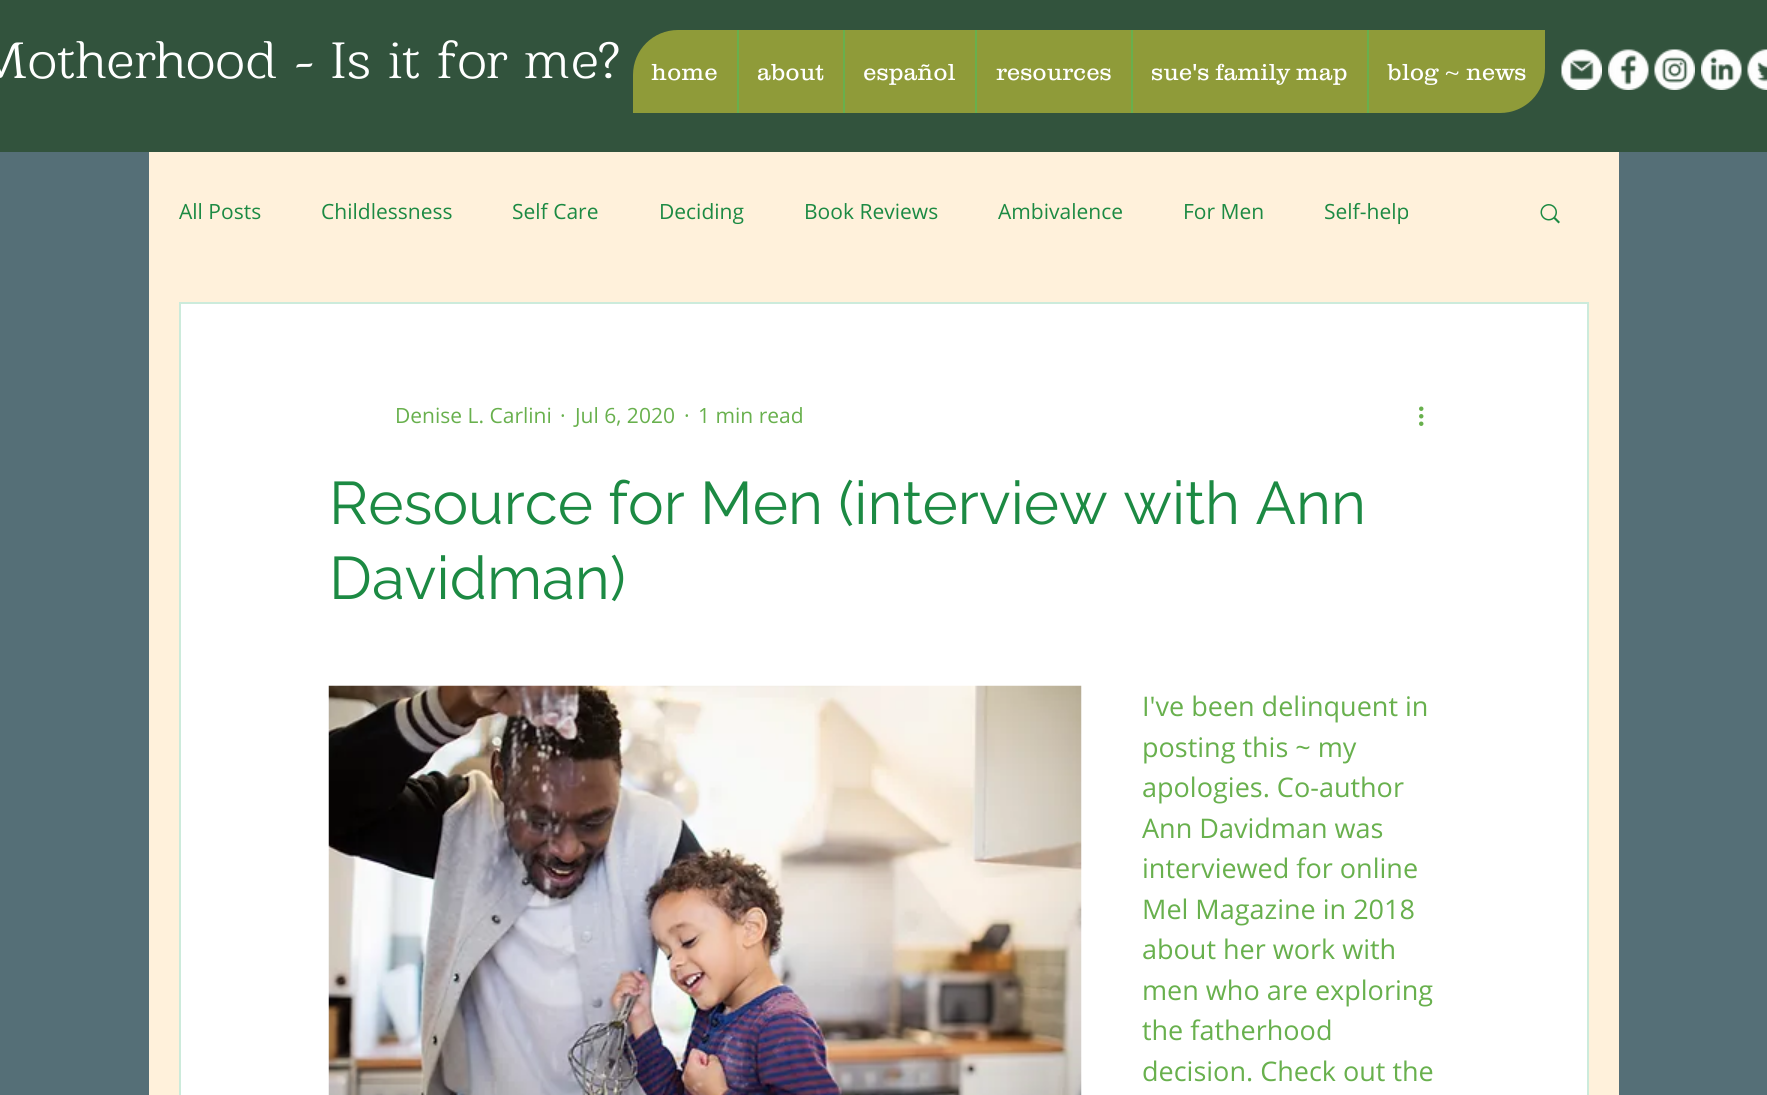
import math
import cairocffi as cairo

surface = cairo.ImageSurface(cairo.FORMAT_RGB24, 1767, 1095)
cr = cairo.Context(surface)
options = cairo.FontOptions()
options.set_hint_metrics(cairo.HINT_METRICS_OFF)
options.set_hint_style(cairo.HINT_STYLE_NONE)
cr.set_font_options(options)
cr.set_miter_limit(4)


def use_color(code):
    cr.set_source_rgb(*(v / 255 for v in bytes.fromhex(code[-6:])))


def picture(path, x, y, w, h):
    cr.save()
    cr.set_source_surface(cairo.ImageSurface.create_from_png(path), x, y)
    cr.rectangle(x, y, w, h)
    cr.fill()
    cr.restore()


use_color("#556f77")
cr.paint()
use_color("#32533d")
cr.rectangle(0, 0, 1767, 152)
cr.fill()
cr.select_font_face("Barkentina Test")
cr.set_font_size(52.5)
use_color("#ffffff")
cr.move_to(-25, 78)
cr.show_text("Motherhood - Is it for me?")
use_color("#8f9b39")
cr.new_path()
cr.move_to(678, 30)
cr.line_to(1545, 30)
cr.line_to(1545, 68)
cr.curve_to(1545, 93, 1525, 113, 1500, 113)
cr.line_to(633, 113)
cr.line_to(633, 75)
cr.curve_to(633, 50, 653, 30, 678, 30)
cr.close_path()
cr.fill()
cr.select_font_face("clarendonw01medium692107 Light")
cr.set_font_size(24)
use_color("#ffffff")
cr.move_to(651, 80)
cr.show_text("home")
use_color("#68b04d")
cr.rectangle(737, 30, 2, 83)
cr.fill()
use_color("#ffffff")
cr.move_to(757, 80)
cr.show_text("about")
use_color("#68b04d")
cr.rectangle(843, 30, 2, 83)
cr.fill()
use_color("#ffffff")
cr.move_to(863, 80)
cr.show_text("español")
use_color("#68b04d")
cr.rectangle(975, 30, 2, 83)
cr.fill()
use_color("#ffffff")
cr.move_to(996, 80)
cr.show_text("resources")
use_color("#68b04d")
cr.rectangle(1131, 30, 2, 83)
cr.fill()
use_color("#ffffff")
cr.move_to(1151, 80)
cr.show_text("sue's family map")
use_color("#68b04d")
cr.rectangle(1367, 30, 2, 83)
cr.fill()
use_color("#ffffff")
cr.move_to(1387, 80)
cr.show_text("blog ~ news")
picture("img1.png", 1561, 49, 41, 41)
picture("img2.png", 1608, 49, 41, 41)
picture("img3.png", 1654, 49, 41, 41)
picture("img4.png", 1701, 49, 41, 41)
picture("img5.png", 1747, 49, 20, 41)
use_color("#fff1db")
cr.rectangle(149, 152, 1470, 943)
cr.fill()
cr.select_font_face("Open Sans")
cr.set_font_size(21)
use_color("#1c8a43")
cr.move_to(179, 219)
cr.show_text("All Posts")
cr.move_to(321, 219)
cr.show_text("Childlessness")
cr.move_to(512, 219)
cr.show_text("Self Care")
cr.move_to(659, 219)
cr.show_text("Deciding")
cr.move_to(804, 219)
cr.show_text("Book Reviews")
cr.move_to(998, 219)
cr.show_text("Ambivalence")
cr.move_to(1183, 219)
cr.show_text("For Men")
cr.move_to(1324, 219)
cr.show_text("Self-help")
picture("img6.png", 1540, 204, 20, 20)
use_color("#ffffff")
cr.rectangle(180, 303, 1408, 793)
cr.fill_preserve()
use_color("#ccebdb")
cr.stroke()
use_color("#68b04d")
cr.move_to(395, 423)
cr.show_text("Denise L. Carlini")
cr.move_to(560, 423)
cr.show_text("·")
cr.move_to(575, 423)
cr.show_text("Jul 6, 2020")
cr.move_to(684, 423)
cr.show_text("·")
cr.move_to(698, 423)
cr.show_text("1 min read")
picture("img7.png", 1419, 406, 5, 20)
cr.select_font_face("Raleway")
cr.set_font_size(60)
use_color("#1c8a43")
cr.move_to(329, 524)
cr.show_text("Resource for Men (interview with Ann")
cr.move_to(329, 599)
cr.show_text("Davidman)")
picture("img8.png", 328, 685, 754, 410)
cr.select_font_face("Open Sans")
cr.set_font_size(27)
use_color("#68b04d")
cr.move_to(1142, 716)
cr.show_text("I've been delinquent in")
cr.move_to(1142, 757)
cr.show_text("posting this ~ my")
cr.move_to(1142, 797)
cr.show_text("apologies. Co-author")
cr.move_to(1142, 838)
cr.show_text("Ann Davidman was")
cr.move_to(1142, 878)
cr.show_text("interviewed for online")
cr.move_to(1142, 919)
cr.show_text("Mel Magazine in 2018")
cr.move_to(1142, 959)
cr.show_text("about her work with")
cr.move_to(1142, 1000)
cr.show_text("men who are exploring")
cr.move_to(1142, 1040)
cr.show_text("the fatherhood")
cr.move_to(1142, 1081)
cr.show_text("decision. Check out the")
surface.write_to_png("result.png")
